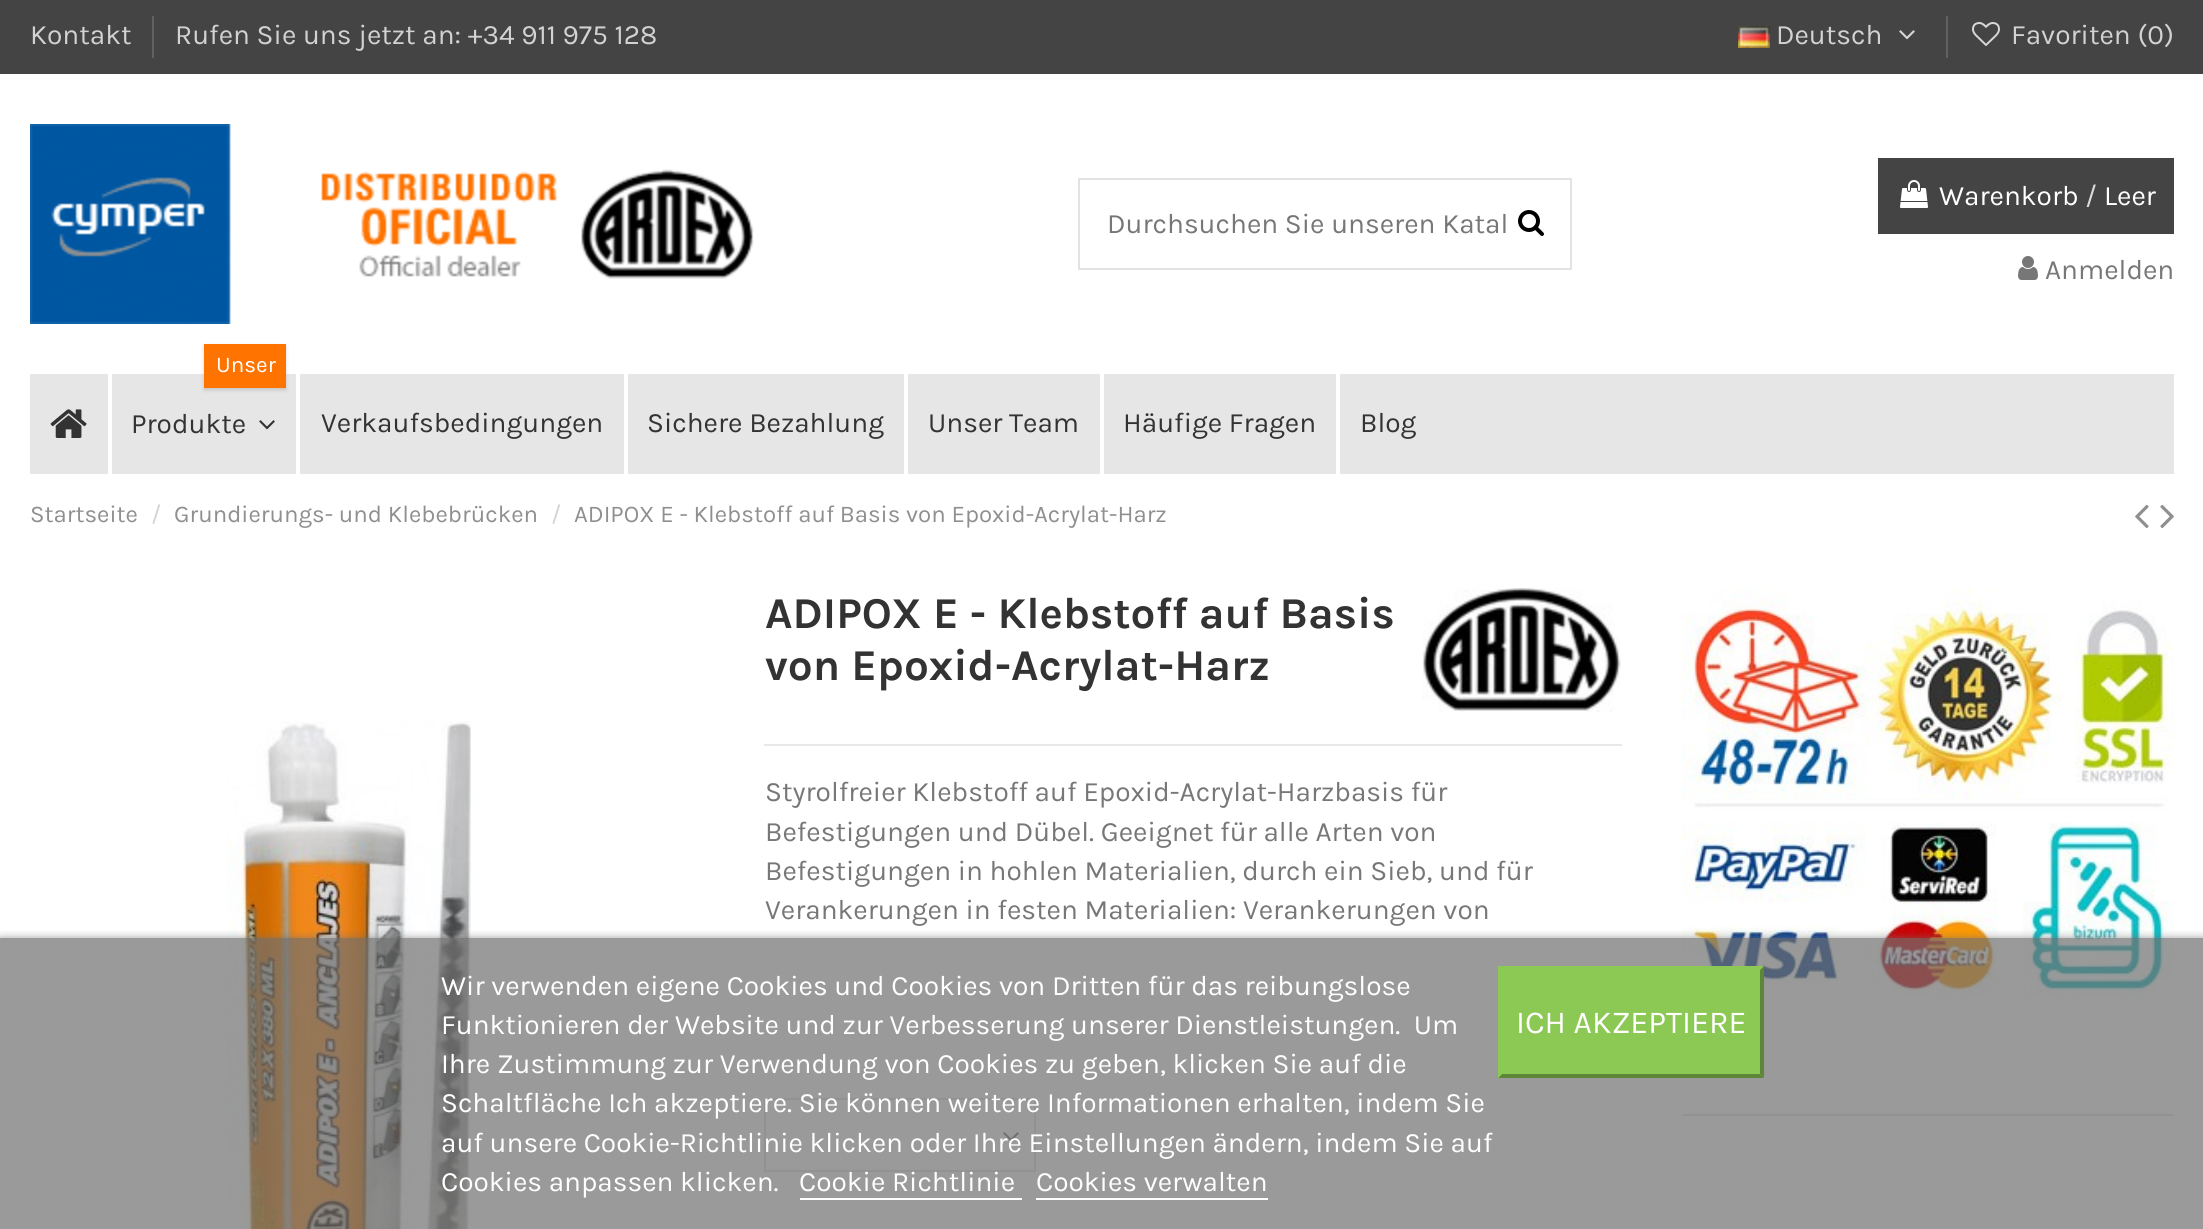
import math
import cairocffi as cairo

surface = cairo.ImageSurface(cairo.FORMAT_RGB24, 2203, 1229)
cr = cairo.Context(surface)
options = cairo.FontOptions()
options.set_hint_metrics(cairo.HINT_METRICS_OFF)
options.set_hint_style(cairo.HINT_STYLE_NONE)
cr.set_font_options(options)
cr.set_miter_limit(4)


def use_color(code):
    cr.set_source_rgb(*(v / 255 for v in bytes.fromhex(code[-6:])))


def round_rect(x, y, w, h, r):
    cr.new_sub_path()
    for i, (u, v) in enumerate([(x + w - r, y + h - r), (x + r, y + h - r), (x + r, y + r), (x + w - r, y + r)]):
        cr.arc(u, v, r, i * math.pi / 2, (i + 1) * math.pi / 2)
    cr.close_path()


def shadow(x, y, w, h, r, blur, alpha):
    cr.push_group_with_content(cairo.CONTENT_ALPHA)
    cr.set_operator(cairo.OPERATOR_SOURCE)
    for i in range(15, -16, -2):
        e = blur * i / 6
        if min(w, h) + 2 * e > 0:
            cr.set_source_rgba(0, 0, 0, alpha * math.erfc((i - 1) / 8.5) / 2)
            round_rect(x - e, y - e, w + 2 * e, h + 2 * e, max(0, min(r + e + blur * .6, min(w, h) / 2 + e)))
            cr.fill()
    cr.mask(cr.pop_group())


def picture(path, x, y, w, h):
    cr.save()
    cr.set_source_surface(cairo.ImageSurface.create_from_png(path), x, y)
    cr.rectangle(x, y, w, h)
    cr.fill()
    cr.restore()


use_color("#ffffff")
cr.paint()
use_color("#444444")
cr.rectangle(0, 0, 2203, 74)
cr.fill()
cr.select_font_face("Karla")
cr.set_font_size(28)
use_color("#d2d2d2")
cr.move_to(30, 44)
cr.show_text("Kontakt")
use_color("#616161")
cr.rectangle(152, 16, 2, 42)
cr.fill()
use_color("#d2d2d2")
cr.move_to(175, 44)
cr.show_text("Rufen Sie uns jetzt an: +34 911 975 128")
picture("img1.png", 1738, 26, 32, 22)
cr.move_to(1776, 44)
cr.show_text("Deutsch")
picture("img2.png", 1899, 30, 16, 10)
use_color("#616161")
cr.rectangle(1946, 16, 2, 42)
cr.fill()
picture("img3.png", 1972, 22, 28, 24)
use_color("#d2d2d2")
cr.move_to(2011, 44)
cr.show_text("Favoriten (0)")
picture("img4.png", 30, 124, 724, 200)
cr.rectangle(1079, 179, 492, 90)
use_color("#e3e3e3")
cr.stroke()
use_color("#777777")
cr.move_to(1107, 233)
cr.show_text("Durchsuchen Sie unseren Katal")
picture("img5.png", 1518, 210, 26, 26)
use_color("#444444")
cr.rectangle(1878, 158, 296, 76)
cr.fill()
picture("img6.png", 1900, 180, 28, 28)
use_color("#ffffff")
cr.move_to(1939, 205)
cr.show_text("Warenkorb")
use_color("#dadada")
cr.move_to(2085, 205)
cr.show_text("/")
use_color("#ffffff")
cr.move_to(2104, 205)
cr.show_text("Leer")
picture("img7.png", 2018, 256, 20, 24)
use_color("#777777")
cr.move_to(2045, 279)
cr.show_text("Anmelden")
use_color("#e6e6e6")
cr.rectangle(30, 374, 2144, 100)
cr.fill()
picture("img8.png", 50, 409, 37, 29)
use_color("#ffffff")
cr.rectangle(108, 374, 4, 100)
cr.fill()
use_color("#000000")
shadow(204, 346, 82, 44, 0, 2, 0.15)
use_color("#ff7300")
cr.rectangle(204, 344, 82, 44)
cr.fill()
cr.set_font_size(22.5)
use_color("#ffffff")
cr.move_to(216, 372)
cr.show_text("Unser")
cr.set_font_size(28)
use_color("#333333")
cr.move_to(131, 433)
cr.show_text("Produkte")
picture("img9.png", 259, 420, 16, 10)
use_color("#ffffff")
cr.rectangle(296, 374, 4, 100)
cr.fill()
use_color("#333333")
cr.move_to(321, 432)
cr.show_text("Verkaufsbedingungen")
use_color("#ffffff")
cr.rectangle(624, 374, 4, 100)
cr.fill()
use_color("#333333")
cr.move_to(647, 432)
cr.show_text("Sichere Bezahlung")
use_color("#ffffff")
cr.rectangle(904, 374, 4, 100)
cr.fill()
use_color("#333333")
cr.move_to(928, 432)
cr.show_text("Unser Team")
use_color("#ffffff")
cr.rectangle(1100, 374, 4, 100)
cr.fill()
use_color("#333333")
cr.move_to(1123, 432)
cr.show_text("Häufige Fragen")
use_color("#ffffff")
cr.rectangle(1336, 374, 4, 100)
cr.fill()
use_color("#333333")
cr.move_to(1360, 432)
cr.show_text("Blog")
cr.set_font_size(24)
use_color("#8f8f8f")
cr.move_to(30, 522)
cr.show_text("Startseite")
use_color("#d2d2d2")
cr.move_to(151, 522)
cr.show_text("/")
use_color("#8f8f8f")
cr.move_to(174, 522)
cr.show_text("Grundierungs- und Klebebrücken")
use_color("#d2d2d2")
cr.move_to(551, 522)
cr.show_text("/")
use_color("#8f8f8f")
cr.move_to(574, 522)
cr.show_text("ADIPOX E - Klebstoff auf Basis von Epoxid-Acrylat-Harz")
picture("img10.png", 2135, 504, 14, 25)
picture("img11.png", 2160, 504, 14, 25)
picture("img12.png", 227, 721, 244, 508)
use_color("#e8e8e8")
cr.rectangle(764, 744, 858, 2)
cr.fill()
cr.select_font_face("Karla", cairo.FONT_SLANT_NORMAL, cairo.FONT_WEIGHT_BOLD)
cr.set_font_size(44)
use_color("#333333")
cr.move_to(765, 628)
cr.show_text("ADIPOX E - Klebstoff auf Basis")
cr.move_to(765, 680)
cr.show_text("von Epoxid-Acrylat-Harz")
picture("img13.png", 1422, 588, 199, 124)
cr.select_font_face("Karla")
cr.set_font_size(28)
use_color("#777777")
cr.move_to(765, 801)
cr.show_text("Styrolfreier Klebstoff auf Epoxid-Acrylat-Harzbasis für")
cr.move_to(765, 841)
cr.show_text("Befestigungen und Dübel. Geeignet für alle Arten von")
cr.move_to(765, 880)
cr.show_text("Befestigungen in hohlen Materialien, durch ein Sieb, und für")
cr.move_to(765, 919)
cr.show_text("Verankerungen in festen Materialien: Verankerungen von")
picture("img14.png", 1003, 1132, 16, 10)
cr.rectangle(765, 1099, 270, 72)
use_color("#e3e3e3")
cr.stroke()
picture("img15.png", 1682, 588, 492, 408)
cr.rectangle(1682, 1114, 492, 2)
cr.fill()
cr.save()
cr.rectangle(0, 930, 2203, 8)
cr.clip()
use_color("#707070")
shadow(0, 940, 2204, 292, 0, 5, 1)
cr.restore()
cr.set_source_rgba(0.439, 0.439, 0.439, 0.7)
cr.rectangle(0, 938, 2203, 291)
cr.fill()
use_color("#ffffff")
cr.move_to(441, 995)
cr.show_text("Wir verwenden eigene Cookies und Cookies von Dritten für das reibungslose")
cr.move_to(441, 1034)
cr.show_text("Funktionieren der Website und zur Verbesserung unserer Dienstleistungen.  Um")
cr.move_to(441, 1073)
cr.show_text("Ihre Zustimmung zur Verwendung von Cookies zu geben, klicken Sie auf die")
cr.move_to(441, 1112)
cr.show_text("Schaltfläche Ich akzeptiere. Sie können weitere Informationen erhalten, indem Sie")
cr.move_to(441, 1152)
cr.show_text("auf unsere Cookie-Richtlinie klicken oder Ihre Einstellungen ändern, indem Sie auf")
cr.move_to(441, 1191)
cr.show_text("Cookies anpassen klicken.")
cr.move_to(799, 1191)
cr.show_text("Cookie Richtlinie")
cr.rectangle(800, 1198, 222, 2)
cr.fill()
cr.move_to(1036, 1191)
cr.show_text("Cookies verwalten")
cr.rectangle(1036, 1198, 232, 2)
cr.fill()
use_color("#8bc954")
cr.rectangle(1498, 966, 266, 112)
cr.fill()
use_color("#5d8638")
cr.new_path()
cr.move_to(1764, 966)
cr.line_to(1764, 1078)
cr.line_to(1760, 1074)
cr.line_to(1760, 970)
cr.close_path()
cr.fill()
cr.new_path()
cr.move_to(1764, 1078)
cr.line_to(1498, 1078)
cr.line_to(1502, 1074)
cr.line_to(1760, 1074)
cr.close_path()
cr.fill()
use_color("#8bc954")
cr.new_path()
cr.move_to(1498, 1078)
cr.line_to(1498, 966)
cr.line_to(1502, 970)
cr.line_to(1502, 1074)
cr.close_path()
cr.fill()
cr.set_font_size(32)
use_color("#ffffff")
cr.move_to(1516, 1033)
cr.show_text("ICH AKZEPTIERE")
surface.write_to_png("result.png")
